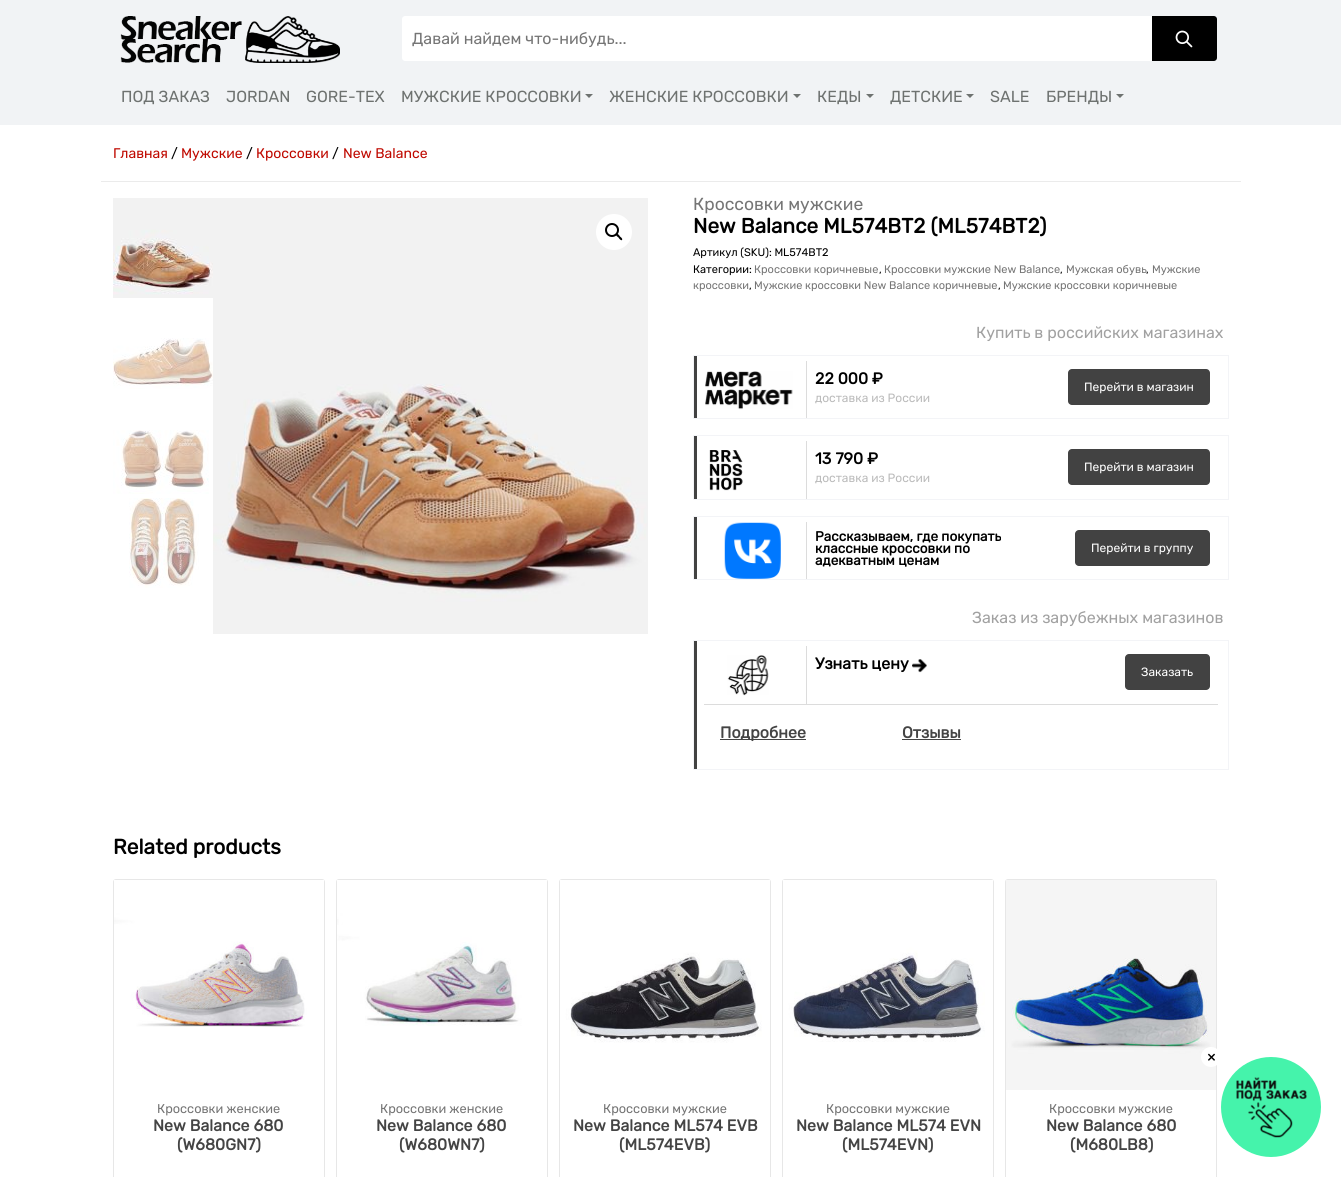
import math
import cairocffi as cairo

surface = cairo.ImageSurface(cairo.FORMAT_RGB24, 1341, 1177)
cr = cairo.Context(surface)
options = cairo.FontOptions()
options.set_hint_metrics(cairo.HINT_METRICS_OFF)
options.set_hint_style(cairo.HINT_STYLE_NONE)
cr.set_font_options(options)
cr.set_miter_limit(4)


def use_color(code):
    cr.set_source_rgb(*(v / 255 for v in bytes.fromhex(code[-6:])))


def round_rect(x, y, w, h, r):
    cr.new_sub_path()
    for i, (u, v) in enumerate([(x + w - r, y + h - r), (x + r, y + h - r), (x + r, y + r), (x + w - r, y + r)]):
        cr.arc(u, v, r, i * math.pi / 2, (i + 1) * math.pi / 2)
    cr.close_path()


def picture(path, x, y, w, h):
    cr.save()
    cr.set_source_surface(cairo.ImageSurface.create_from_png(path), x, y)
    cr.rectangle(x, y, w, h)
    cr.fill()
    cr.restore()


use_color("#ffffff")
cr.paint()
use_color("#f1f3f5")
cr.rectangle(0, 0, 1341, 125)
cr.fill()
picture("img1.png", 120, 16, 220, 47)
use_color("#ffffff")
cr.new_path()
cr.move_to(405, 16)
cr.line_to(1152, 16)
cr.line_to(1152, 61)
cr.line_to(405, 61)
cr.curve_to(403.5, 61, 402, 59.5, 402, 58)
cr.line_to(402, 19)
cr.curve_to(402, 17.5, 403.5, 16, 405, 16)
cr.close_path()
cr.fill()
cr.save()
cr.rectangle(412, 29, 715, 19)
cr.clip()
cr.select_font_face("Rubik Light")
cr.set_font_size(16)
use_color("#757575")
cr.move_to(412, 44)
cr.show_text("Давай найдем что-нибудь...")
cr.restore()
use_color("#000000")
cr.new_path()
cr.move_to(1152, 16)
cr.line_to(1214, 16)
cr.curve_to(1215.5, 16, 1217, 17.5, 1217, 19)
cr.line_to(1217, 58)
cr.curve_to(1217, 59.5, 1215.5, 61, 1214, 61)
cr.line_to(1152, 61)
cr.close_path()
cr.fill()
picture("img2.png", 1175, 30, 18, 18)
cr.select_font_face("Rubik Light")
cr.set_font_size(16)
use_color("#6e7270")
cr.move_to(121, 102)
cr.show_text("ПОД ЗАКАЗ")
cr.move_to(226, 102)
cr.show_text("JORDAN")
cr.move_to(306, 102)
cr.show_text("GORE-TEX")
cr.move_to(401, 102)
cr.show_text("МУЖСКИЕ КРОССОВКИ")
cr.new_path()
cr.move_to(585, 94)
cr.line_to(593, 94)
cr.line_to(589, 98)
cr.close_path()
cr.fill()
cr.move_to(609, 102)
cr.show_text("ЖЕНСКИЕ КРОССОВКИ")
cr.new_path()
cr.move_to(793, 94)
cr.line_to(801, 94)
cr.line_to(797, 98)
cr.close_path()
cr.fill()
cr.move_to(817, 102)
cr.show_text("КЕДЫ")
cr.new_path()
cr.move_to(866, 94)
cr.line_to(874, 94)
cr.line_to(870, 98)
cr.close_path()
cr.fill()
cr.move_to(890, 102)
cr.show_text("ДЕТСКИЕ")
cr.new_path()
cr.move_to(966, 94)
cr.line_to(974, 94)
cr.line_to(970, 98)
cr.close_path()
cr.fill()
cr.move_to(990, 102)
cr.show_text("SALE")
cr.move_to(1046, 102)
cr.show_text("БРЕНДЫ")
cr.new_path()
cr.move_to(1116, 94)
cr.line_to(1124, 94)
cr.line_to(1120, 98)
cr.close_path()
cr.fill()
use_color("#ebebeb")
cr.rectangle(101, 181, 1140, 1)
cr.fill()
cr.set_font_size(14)
use_color("#bf0900")
cr.move_to(113, 158)
cr.show_text("Главная")
use_color("#000000")
cr.move_to(171, 158)
cr.show_text("/")
use_color("#bf0900")
cr.move_to(181, 158)
cr.show_text("Мужские")
use_color("#000000")
cr.move_to(246, 158)
cr.show_text("/")
use_color("#bf0900")
cr.move_to(256, 158)
cr.show_text("Кроссовки")
use_color("#000000")
cr.move_to(332, 158)
cr.show_text("/")
use_color("#bf0900")
cr.move_to(343, 158)
cr.show_text("New Balance")
picture("img3.png", 113, 198, 100, 100)
picture("img4.png", 113, 338, 100, 51)
picture("img5.png", 113, 430, 96, 64)
picture("img6.png", 129, 498, 70, 90)
picture("img7.png", 213, 198, 435, 436)
use_color("#ffffff")
cr.arc(614, 232, 18, 0, 2 * math.pi)
cr.fill()
cr.arc(612, 230, 6, 0, 2 * math.pi)
use_color("#000000")
cr.stroke()
cr.new_path()
cr.move_to(616.5, 234)
cr.curve_to(617.5, 233, 619.5, 235.5, 620, 236.5)
cr.curve_to(620.5, 237, 623, 238.5, 622, 240)
cr.curve_to(621, 241, 619, 238.5, 618.5, 237.5)
cr.curve_to(618, 237, 615, 235.5, 616.5, 234)
cr.close_path()
cr.fill()
cr.set_font_size(17.5)
use_color("#757575")
cr.move_to(693, 210)
cr.show_text("Кроссовки мужские")
cr.select_font_face("Rubik", cairo.FONT_SLANT_NORMAL, cairo.FONT_WEIGHT_BOLD)
cr.set_font_size(20.75)
use_color("#000000")
cr.move_to(693, 233)
cr.show_text("New Balance ML574BT2 (ML574BT2)")
cr.select_font_face("Rubik Light")
cr.set_font_size(11)
cr.move_to(693, 256)
cr.show_text("Артикул (SKU): ML574BT2")
cr.move_to(693, 273)
cr.show_text("Категории:")
use_color("#757575")
cr.move_to(754, 273)
cr.show_text("Кроссовки коричневые")
use_color("#000000")
cr.move_to(879, 273)
cr.show_text(",")
use_color("#757575")
cr.move_to(884, 273)
cr.show_text("Кроссовки мужские New Balance")
use_color("#000000")
cr.move_to(1060, 273)
cr.show_text(",")
use_color("#757575")
cr.move_to(1066, 273)
cr.show_text("Мужская обувь")
use_color("#000000")
cr.move_to(1146, 273)
cr.show_text(",")
use_color("#757575")
cr.move_to(1152, 273)
cr.show_text("Мужские")
cr.move_to(693, 289)
cr.show_text("кроссовки")
use_color("#000000")
cr.move_to(749, 289)
cr.show_text(",")
use_color("#757575")
cr.move_to(754, 289)
cr.show_text("Мужские кроссовки New Balance коричневые")
use_color("#000000")
cr.move_to(998, 289)
cr.show_text(",")
use_color("#757575")
cr.move_to(1003, 289)
cr.show_text("Мужские кроссовки коричневые")
cr.set_font_size(16)
use_color("#a1a1a1")
cr.move_to(976, 338)
cr.show_text("Купить в российских магазинах")
use_color("#424242")
cr.rectangle(694, 356, 3, 62)
cr.fill()
cr.rectangle(693.5, 355.5, 535, 63)
use_color("#f3f4f7")
cr.set_line_width(1)
cr.stroke()
use_color("#dcdcdc")
cr.rectangle(806, 361, 1, 57)
cr.fill()
picture("img8.png", 705, 371, 88, 39)
cr.select_font_face("Rubik", cairo.FONT_SLANT_NORMAL, cairo.FONT_WEIGHT_BOLD)
use_color("#000000")
cr.move_to(815, 384)
cr.show_text("22 000 ₽")
cr.select_font_face("Rubik Light")
cr.set_font_size(12)
use_color("#bbbbbb")
cr.move_to(815, 402)
cr.show_text("доставка из России")
use_color("#424242")
round_rect(1068, 369, 142, 36, 4)
cr.fill()
use_color("#ffffff")
cr.move_to(1084, 391)
cr.show_text("Перейти в магазин")
use_color("#424242")
cr.rectangle(694, 436, 3, 63)
cr.fill()
cr.rectangle(693.5, 435.5, 535, 64)
use_color("#f3f4f7")
cr.stroke()
use_color("#dcdcdc")
cr.rectangle(806, 441, 1, 58)
cr.fill()
picture("img9.png", 709, 450, 34, 41)
cr.select_font_face("Rubik", cairo.FONT_SLANT_NORMAL, cairo.FONT_WEIGHT_BOLD)
cr.set_font_size(16)
use_color("#000000")
cr.move_to(815, 464)
cr.show_text("13 790 ₽")
cr.select_font_face("Rubik Light")
cr.set_font_size(12)
use_color("#bbbbbb")
cr.move_to(815, 482)
cr.show_text("доставка из России")
use_color("#424242")
round_rect(1068, 449, 142, 36, 4)
cr.fill()
use_color("#ffffff")
cr.move_to(1084, 471)
cr.show_text("Перейти в магазин")
use_color("#424242")
cr.rectangle(694, 517, 3, 62)
cr.fill()
cr.rectangle(693.5, 516.5, 535, 63)
use_color("#f3f4f7")
cr.stroke()
use_color("#dcdcdc")
cr.rectangle(806, 522, 1, 57)
cr.fill()
picture("img10.png", 724, 522, 57, 57)
cr.select_font_face("Rubik", cairo.FONT_SLANT_NORMAL, cairo.FONT_WEIGHT_BOLD)
cr.set_font_size(13.6)
use_color("#000000")
cr.move_to(815, 541)
cr.show_text("Рассказываем, где покупать")
cr.move_to(815, 553)
cr.show_text("классные кроссовки по")
cr.move_to(815, 565)
cr.show_text("адекватным ценам")
use_color("#424242")
round_rect(1075, 530, 135, 36, 4)
cr.fill()
cr.select_font_face("Rubik Light")
cr.set_font_size(12)
use_color("#ffffff")
cr.move_to(1091, 552)
cr.show_text("Перейти в группу")
cr.set_font_size(16)
use_color("#a1a1a1")
cr.move_to(972, 623)
cr.show_text("Заказ из зарубежных магазинов")
use_color("#424242")
cr.rectangle(694, 641, 3, 128)
cr.fill()
cr.rectangle(693.5, 640.5, 535, 129)
use_color("#f3f4f7")
cr.stroke()
use_color("#dcdcdc")
cr.rectangle(806, 646, 1, 58)
cr.fill()
picture("img11.png", 727, 655, 42, 41)
cr.select_font_face("Rubik", cairo.FONT_SLANT_NORMAL, cairo.FONT_WEIGHT_BOLD)
use_color("#000000")
cr.move_to(815, 669)
cr.show_text("Узнать цену")
picture("img12.png", 912, 659, 15, 14)
use_color("#424242")
round_rect(1125, 654, 85, 36, 4)
cr.fill()
cr.select_font_face("Rubik Light")
cr.set_font_size(12)
use_color("#ffffff")
cr.move_to(1141, 676)
cr.show_text("Заказать")
use_color("#dcdcdc")
cr.rectangle(704, 704, 514, 1)
cr.fill()
use_color("#444444")
cr.rectangle(720, 739, 86, 1)
cr.fill()
cr.select_font_face("Rubik", cairo.FONT_SLANT_NORMAL, cairo.FONT_WEIGHT_BOLD)
cr.set_font_size(16)
cr.move_to(720, 738)
cr.show_text("Подробнее")
cr.move_to(902, 738)
cr.show_text("Отзывы")
cr.rectangle(902, 739, 59, 1)
cr.fill()
cr.set_font_size(21)
use_color("#000000")
cr.move_to(113, 854)
cr.show_text("Related products")
round_rect(113.5, 879.5, 211, 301, 2.5)
use_color("#e7e7e7")
cr.stroke()
picture("img13.png", 114, 880, 210, 147)
cr.select_font_face("Rubik Light")
cr.set_font_size(12.75)
use_color("#757575")
cr.move_to(157, 1113)
cr.show_text("Кроссовки женские")
cr.select_font_face("Rubik", cairo.FONT_SLANT_NORMAL, cairo.FONT_WEIGHT_BOLD)
cr.set_font_size(16)
use_color("#444444")
cr.move_to(153, 1131)
cr.show_text("New Balance 680")
cr.move_to(177, 1150)
cr.show_text("(W680GN7)")
round_rect(336.5, 879.5, 211, 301, 2.5)
use_color("#e7e7e7")
cr.stroke()
picture("img14.png", 337, 880, 210, 146)
cr.select_font_face("Rubik Light")
cr.set_font_size(12.75)
use_color("#757575")
cr.move_to(380, 1113)
cr.show_text("Кроссовки женские")
cr.select_font_face("Rubik", cairo.FONT_SLANT_NORMAL, cairo.FONT_WEIGHT_BOLD)
cr.set_font_size(16)
use_color("#444444")
cr.move_to(376, 1131)
cr.show_text("New Balance 680")
cr.move_to(399, 1150)
cr.show_text("(W680WN7)")
round_rect(559.5, 879.5, 211, 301, 2.5)
use_color("#e7e7e7")
cr.stroke()
picture("img15.png", 560, 880, 210, 163)
cr.select_font_face("Rubik Light")
cr.set_font_size(12.75)
use_color("#757575")
cr.move_to(603, 1113)
cr.show_text("Кроссовки мужские")
cr.select_font_face("Rubik", cairo.FONT_SLANT_NORMAL, cairo.FONT_WEIGHT_BOLD)
cr.set_font_size(16)
use_color("#444444")
cr.move_to(573, 1131)
cr.show_text("New Balance ML574 EVB")
cr.move_to(619, 1150)
cr.show_text("(ML574EVB)")
round_rect(782.5, 879.5, 211, 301, 2.5)
use_color("#e7e7e7")
cr.stroke()
picture("img16.png", 783, 880, 210, 162)
cr.select_font_face("Rubik Light")
cr.set_font_size(12.75)
use_color("#757575")
cr.move_to(826, 1113)
cr.show_text("Кроссовки мужские")
cr.select_font_face("Rubik", cairo.FONT_SLANT_NORMAL, cairo.FONT_WEIGHT_BOLD)
cr.set_font_size(16)
use_color("#444444")
cr.move_to(796, 1131)
cr.show_text("New Balance ML574 EVN")
cr.move_to(842, 1150)
cr.show_text("(ML574EVN)")
round_rect(1005.5, 879.5, 211, 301, 2.5)
use_color("#e7e7e7")
cr.stroke()
picture("img17.png", 1006, 880, 210, 210)
cr.select_font_face("Rubik Light")
cr.set_font_size(12.75)
use_color("#757575")
cr.move_to(1049, 1113)
cr.show_text("Кроссовки мужские")
cr.select_font_face("Rubik", cairo.FONT_SLANT_NORMAL, cairo.FONT_WEIGHT_BOLD)
cr.set_font_size(16)
use_color("#444444")
cr.move_to(1046, 1131)
cr.show_text("New Balance 680")
cr.move_to(1070, 1150)
cr.show_text("(M680LB8)")
use_color("#45f3ab")
cr.new_path()
cr.arc(1271, 1107, 50, 0, 2 * math.pi)
cr.fill()
use_color("#ffffff")
cr.arc(1211, 1057, 10, 0, 2 * math.pi)
cr.fill()
cr.select_font_face("Rubik Light")
use_color("#000000")
cr.move_to(1207, 1062)
cr.show_text("×")
picture("img18.png", 1236, 1077, 71, 61)
surface.write_to_png("result.png")
